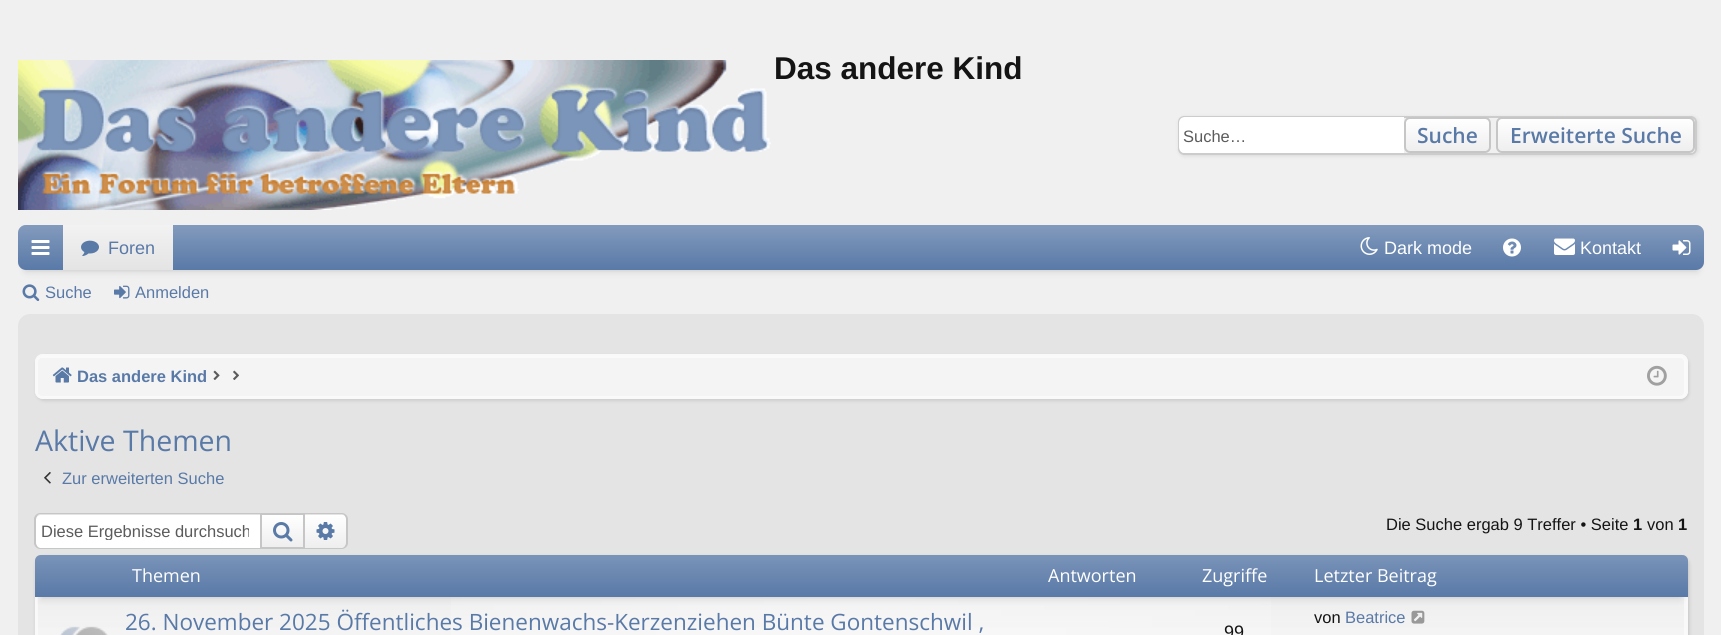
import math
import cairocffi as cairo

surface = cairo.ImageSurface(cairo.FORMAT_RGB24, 1721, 635)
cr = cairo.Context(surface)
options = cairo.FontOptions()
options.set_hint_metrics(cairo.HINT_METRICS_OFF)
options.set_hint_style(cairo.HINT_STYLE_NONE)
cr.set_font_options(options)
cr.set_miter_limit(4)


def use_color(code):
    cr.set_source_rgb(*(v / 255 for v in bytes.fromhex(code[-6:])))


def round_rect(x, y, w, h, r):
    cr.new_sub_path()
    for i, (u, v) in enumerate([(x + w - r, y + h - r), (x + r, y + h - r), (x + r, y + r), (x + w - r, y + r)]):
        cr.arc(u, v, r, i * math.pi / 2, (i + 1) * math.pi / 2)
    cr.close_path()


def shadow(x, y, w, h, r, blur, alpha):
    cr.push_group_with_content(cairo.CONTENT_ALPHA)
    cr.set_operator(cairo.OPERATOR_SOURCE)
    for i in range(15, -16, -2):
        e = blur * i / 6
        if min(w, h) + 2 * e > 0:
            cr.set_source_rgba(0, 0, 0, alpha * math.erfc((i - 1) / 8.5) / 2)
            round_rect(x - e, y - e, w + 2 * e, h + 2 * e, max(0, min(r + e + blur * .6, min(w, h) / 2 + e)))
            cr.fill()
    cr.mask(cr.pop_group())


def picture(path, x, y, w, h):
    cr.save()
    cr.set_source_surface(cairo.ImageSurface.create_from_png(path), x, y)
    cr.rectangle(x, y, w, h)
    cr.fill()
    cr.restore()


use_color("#f0f0f0")
cr.paint()
picture("img1.png", 18, 60, 753, 150)
cr.select_font_face("Liberation Sans", cairo.FONT_SLANT_NORMAL, cairo.FONT_WEIGHT_BOLD)
cr.set_font_size(31.5)
use_color("#141414")
cr.move_to(774, 79)
cr.show_text("Das andere Kind")
cr.save()
cr.set_fill_rule(cairo.FILL_RULE_EVEN_ODD)
cr.new_path()
cr.move_to(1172, 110)
cr.line_to(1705, 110)
cr.line_to(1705, 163)
cr.line_to(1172, 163)
cr.close_path()
cr.move_to(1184, 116)
cr.line_to(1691, 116)
cr.curve_to(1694.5, 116, 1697, 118.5, 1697, 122)
cr.line_to(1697, 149)
cr.curve_to(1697, 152.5, 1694.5, 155, 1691, 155)
cr.line_to(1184, 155)
cr.curve_to(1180.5, 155, 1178, 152.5, 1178, 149)
cr.line_to(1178, 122)
cr.curve_to(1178, 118.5, 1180.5, 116, 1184, 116)
cr.close_path()
cr.clip()
use_color("#000000")
shadow(1179, 117, 519, 39, 6, 2, 0.1)
cr.restore()
round_rect(1179, 117, 517, 37, 5)
use_color("#cccccc")
cr.stroke()
use_color("#ffffff")
cr.new_path()
cr.move_to(1185, 117)
cr.line_to(1404, 117)
cr.line_to(1404, 153)
cr.line_to(1185, 153)
cr.curve_to(1181.5, 153, 1179, 150.5, 1179, 147)
cr.line_to(1179, 123)
cr.curve_to(1179, 119.5, 1181.5, 117, 1185, 117)
cr.close_path()
cr.fill()
cr.select_font_face("Liberation Sans")
cr.set_font_size(16.5)
use_color("#5b5b5b")
cr.move_to(1183, 142)
cr.show_text("Suche…")
cr.save()
round_rect(1404, 117, 87, 36, 6)
cr.clip()
gradient = cairo.LinearGradient(1448, 119, 1448, 152)
gradient.add_color_stop_rgba(0, 1, 1, 1, 1)
gradient.add_color_stop_rgba(1, 0.933, 0.933, 0.933, 1)
cr.set_source(gradient)
cr.rectangle(1404, 119, 87, 33)
cr.fill()
cr.restore()
round_rect(1405, 118, 85, 34, 5)
use_color("#c6c6c6")
cr.stroke()
cr.select_font_face("Open Sans SemiBold")
cr.set_font_size(21)
use_color("#5979a7")
cr.move_to(1417, 143)
cr.show_text("Suche")
cr.save()
round_rect(1496, 117, 199, 36, 6)
cr.clip()
gradient = cairo.LinearGradient(1595, 118, 1595, 152)
gradient.add_color_stop_rgba(0, 1, 1, 1, 1)
gradient.add_color_stop_rgba(1, 0.933, 0.933, 0.933, 1)
cr.set_source(gradient)
cr.rectangle(1496, 119, 199, 33)
cr.fill()
cr.restore()
round_rect(1497, 118, 197, 34, 5)
use_color("#c6c6c6")
cr.stroke()
use_color("#5979a7")
cr.move_to(1510, 143)
cr.show_text("Erweiterte Suche")
use_color("#000000")
shadow(26, 240, 1671, 30, 0, 4, 0.2)
use_color("#5979a7")
round_rect(18, 225, 1686, 45, 8)
cr.fill()
gradient = cairo.LinearGradient(861, 225, 861, 270)
gradient.add_color_stop_rgba(0, 1, 1, 1, 0.25)
gradient.add_color_stop_rgba(1, 1, 1, 1, 0)
cr.set_source(gradient)
round_rect(18, 225, 1686, 45, 8)
cr.fill()
picture("img2.png", 31, 240, 19, 15)
gradient = cairo.LinearGradient(118, 225, 118, 270)
gradient.add_color_stop_rgba(0, 0.949, 0.949, 0.949, 1)
gradient.add_color_stop_rgba(1, 0.894, 0.894, 0.894, 1)
cr.set_source(gradient)
cr.rectangle(63, 225, 110, 45)
cr.fill()
picture("img3.png", 81, 240, 18, 16)
cr.select_font_face("Liberation Sans")
cr.set_font_size(18)
use_color("#5979a7")
cr.move_to(108, 254)
cr.show_text("Foren")
picture("img4.png", 1360, 237, 18, 18)
use_color("#ffffff")
cr.move_to(1384, 254)
cr.show_text("Dark mode")
picture("img5.png", 1503, 238, 18, 19)
picture("img6.png", 1554, 238, 21, 17)
cr.move_to(1580, 254)
cr.show_text("Kontakt")
picture("img7.png", 1672, 240, 19, 15)
picture("img8.png", 22, 284, 18, 17)
cr.set_font_size(16.5)
use_color("#5979a7")
cr.move_to(45, 298)
cr.show_text("Suche")
picture("img9.png", 114, 285, 16, 14)
cr.move_to(135, 298)
cr.show_text("Anmelden")
use_color("#e4e4e4")
round_rect(19, 315, 1684, 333, 11)
cr.fill_preserve()
cr.stroke()
use_color("#000000")
shadow(36, 356, 1653, 45, 8, 1.5, 0.1)
use_color("#f4f4f4")
round_rect(35, 354, 1653, 45, 8)
cr.fill()
round_rect(37, 357, 1648, 40, 5)
use_color("#fafafa")
cr.stroke()
round_rect(36, 355, 1651, 43, 7)
use_color("#f9f9f9")
cr.stroke()
picture("img10.png", 52, 367, 20, 16)
cr.select_font_face("Liberation Sans", cairo.FONT_SLANT_NORMAL, cairo.FONT_WEIGHT_BOLD)
use_color("#5979a7")
cr.move_to(77, 382)
cr.show_text("Das andere Kind")
picture("img11.png", 213, 370, 7, 10)
picture("img12.png", 233, 370, 6, 10)
picture("img13.png", 1647, 365, 20, 21)
cr.select_font_face("Open Sans")
cr.set_font_size(28.5)
cr.move_to(35, 451)
cr.show_text("Aktive Themen")
picture("img14.png", 44, 472, 7, 12)
cr.select_font_face("Liberation Sans")
cr.set_font_size(16.5)
cr.move_to(62, 484)
cr.show_text("Zur erweiterten Suche")
use_color("#ffffff")
cr.new_path()
cr.move_to(41, 515)
cr.line_to(260, 515)
cr.line_to(260, 548)
cr.line_to(41, 548)
cr.curve_to(38, 548, 36, 546, 36, 543)
cr.line_to(36, 520)
cr.curve_to(36, 517, 38, 515, 41, 515)
cr.close_path()
cr.fill()
use_color("#c6c6c6")
cr.set_fill_rule(cairo.FILL_RULE_EVEN_ODD)
cr.new_path()
cr.move_to(40, 513)
cr.line_to(260, 513)
cr.line_to(260, 549)
cr.line_to(40, 549)
cr.curve_to(37, 549, 34, 546, 34, 543)
cr.line_to(34, 519)
cr.curve_to(34, 516, 37, 513, 40, 513)
cr.close_path()
cr.move_to(40, 514)
cr.line_to(260, 514)
cr.line_to(260, 548)
cr.line_to(40, 548)
cr.curve_to(38, 548, 36, 545, 36, 543)
cr.line_to(36, 519)
cr.curve_to(36, 517, 38, 514, 40, 514)
cr.close_path()
cr.fill()
cr.save()
cr.set_fill_rule(cairo.FILL_RULE_WINDING)
cr.rectangle(41, 522, 208, 18)
cr.clip()
use_color("#5b5b5b")
cr.move_to(41, 537)
cr.show_text("Diese Ergebnisse durchsuch")
cr.restore()
gradient = cairo.LinearGradient(282, 515, 282, 548)
gradient.add_color_stop_rgba(0, 1, 1, 1, 1)
gradient.add_color_stop_rgba(1, 0.933, 0.933, 0.933, 1)
cr.set_source(gradient)
cr.rectangle(262, 515, 41, 32)
cr.fill()
cr.rectangle(261, 514, 43, 34)
use_color("#c6c6c6")
cr.stroke()
picture("img15.png", 273, 522, 20, 20)
use_color("#eeeeee")
cr.new_path()
cr.move_to(305, 515)
cr.line_to(342, 515)
cr.curve_to(345, 515, 347, 517, 347, 520)
cr.line_to(347, 543)
cr.curve_to(347, 546, 345, 548, 342, 548)
cr.line_to(305, 548)
cr.close_path()
cr.fill()
gradient = cairo.LinearGradient(326, 515, 326, 548)
gradient.add_color_stop_rgba(0, 1, 1, 1, 1)
gradient.add_color_stop_rgba(1, 1, 1, 1, 0)
cr.set_source(gradient)
cr.new_path()
cr.move_to(305, 515)
cr.line_to(342, 515)
cr.curve_to(345, 515, 347, 517, 347, 520)
cr.line_to(347, 543)
cr.curve_to(347, 546, 345, 548, 342, 548)
cr.line_to(305, 548)
cr.close_path()
cr.fill()
use_color("#c6c6c6")
cr.new_path()
cr.move_to(304, 513)
cr.line_to(342, 513)
cr.curve_to(345, 513, 348, 516, 348, 519)
cr.line_to(348, 543)
cr.curve_to(348, 546, 345, 549, 342, 549)
cr.line_to(304, 549)
cr.close_path()
cr.move_to(304, 514)
cr.line_to(342, 514)
cr.curve_to(344, 514, 346, 517, 346, 519)
cr.line_to(346, 543)
cr.curve_to(346, 545, 344, 548, 342, 548)
cr.line_to(304, 548)
cr.close_path()
cr.fill()
picture("img16.png", 316, 522, 19, 18)
use_color("#141414")
cr.move_to(1386, 530)
cr.show_text("Die Suche ergab 9 Treffer • Seite")
cr.select_font_face("Liberation Sans", cairo.FONT_SLANT_NORMAL, cairo.FONT_WEIGHT_BOLD)
cr.move_to(1633, 530)
cr.show_text("1")
cr.select_font_face("Liberation Sans")
cr.move_to(1647, 530)
cr.show_text("von")
cr.select_font_face("Liberation Sans", cairo.FONT_SLANT_NORMAL, cairo.FONT_WEIGHT_BOLD)
cr.move_to(1678, 530)
cr.show_text("1")
use_color("#000000")
shadow(36, 557, 1653, 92, 8, 2, 0.15)
use_color("#f4f4f4")
round_rect(35, 555, 1653, 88, 8)
cr.fill()
cr.save()
cr.set_fill_rule(cairo.FILL_RULE_WINDING)
round_rect(35, 555, 1653, 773, 8)
cr.clip()
gradient = cairo.LinearGradient(861, 556, 861, 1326)
gradient.add_color_stop_rgba(0, 0.8, 0.8, 0.8, 0.2)
gradient.add_color_stop_rgba(0.02, 0.8, 0.8, 0.8, 0.25)
gradient.add_color_stop_rgba(0.1, 0.8, 0.8, 0.8, 0)
cr.set_source(gradient)
cr.rectangle(35, 559, 1653, 69)
cr.fill()
cr.restore()
gradient = cairo.LinearGradient(36, 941, 1686, 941)
gradient.add_color_stop_rgba(0, 1, 1, 1, 0)
gradient.add_color_stop_rgba(0.5, 1, 1, 1, 0.3)
gradient.add_color_stop_rgba(1, 1, 1, 1, 0)
cr.set_source(gradient)
cr.rectangle(451, 597, 820, 38)
cr.fill()
round_rect(37, 558, 1648, 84, 5)
cr.set_source_rgba(1, 1, 1, 0.5)
cr.stroke()
round_rect(36, 556, 1651, 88, 7)
use_color("#f9f9f9")
cr.stroke()
use_color("#000000")
shadow(42, 570, 1638, 27, 0, 4, 0.2)
use_color("#5979a7")
cr.new_path()
cr.move_to(41, 555)
cr.line_to(1682, 555)
cr.curve_to(1685.5, 555, 1688, 557.5, 1688, 561)
cr.line_to(1688, 597)
cr.line_to(35, 597)
cr.line_to(35, 561)
cr.curve_to(35, 557.5, 37.5, 555, 41, 555)
cr.close_path()
cr.fill()
gradient = cairo.LinearGradient(861, 555, 861, 597)
gradient.add_color_stop_rgba(0, 1, 1, 1, 0.2)
gradient.add_color_stop_rgba(1, 1, 1, 1, 0)
cr.set_source(gradient)
cr.new_path()
cr.move_to(41, 555)
cr.line_to(1682, 555)
cr.curve_to(1685.5, 555, 1688, 557.5, 1688, 561)
cr.line_to(1688, 597)
cr.line_to(35, 597)
cr.line_to(35, 561)
cr.curve_to(35, 557.5, 37.5, 555, 41, 555)
cr.close_path()
cr.fill()
cr.select_font_face("Open Sans")
cr.set_font_size(18)
use_color("#ffffff")
cr.move_to(132, 582)
cr.show_text("Themen")
cr.move_to(1048, 582)
cr.show_text("Antworten")
cr.move_to(1202, 582)
cr.show_text("Zugriffe")
cr.move_to(1314, 582)
cr.show_text("Letzter Beitrag")
picture("img17.png", 60, 626, 48, 9)
cr.set_font_size(22.5)
use_color("#5979a7")
cr.move_to(125, 630)
cr.show_text("26. November 2025 Öffentliches Bienenwachs-Kerzenziehen Bünte Gontenschwil ,")
cr.select_font_face("Liberation Sans")
cr.set_font_size(16.5)
use_color("#141414")
cr.move_to(1314, 623)
cr.show_text("von")
use_color("#5979a7")
cr.move_to(1345, 623)
cr.show_text("Beatrice")
picture("img18.png", 1411, 610, 14, 14)
cr.set_font_size(18)
use_color("#141414")
cr.move_to(1224, 638)
cr.show_text("99")
surface.write_to_png("result.png")
